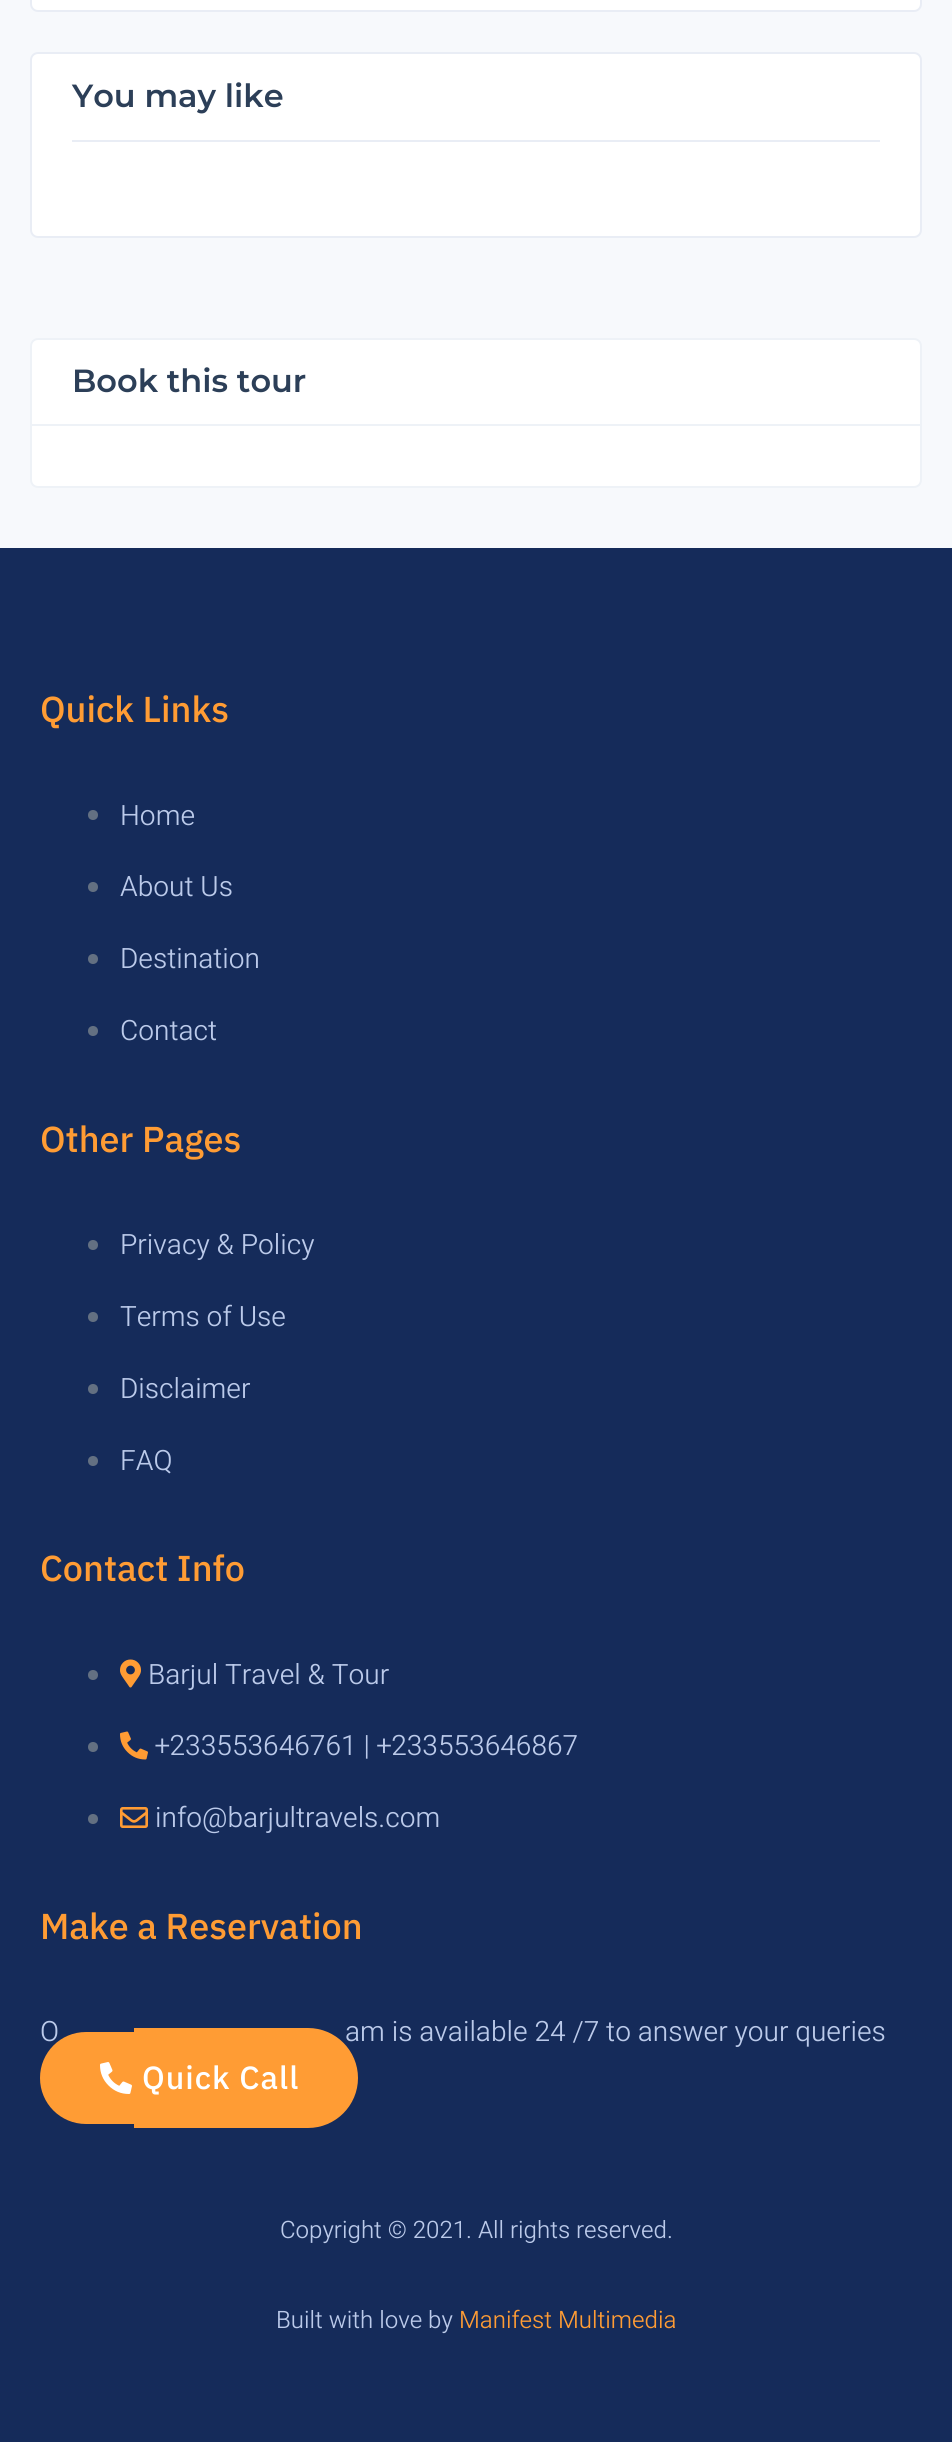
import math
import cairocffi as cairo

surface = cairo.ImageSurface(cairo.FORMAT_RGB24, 952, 2442)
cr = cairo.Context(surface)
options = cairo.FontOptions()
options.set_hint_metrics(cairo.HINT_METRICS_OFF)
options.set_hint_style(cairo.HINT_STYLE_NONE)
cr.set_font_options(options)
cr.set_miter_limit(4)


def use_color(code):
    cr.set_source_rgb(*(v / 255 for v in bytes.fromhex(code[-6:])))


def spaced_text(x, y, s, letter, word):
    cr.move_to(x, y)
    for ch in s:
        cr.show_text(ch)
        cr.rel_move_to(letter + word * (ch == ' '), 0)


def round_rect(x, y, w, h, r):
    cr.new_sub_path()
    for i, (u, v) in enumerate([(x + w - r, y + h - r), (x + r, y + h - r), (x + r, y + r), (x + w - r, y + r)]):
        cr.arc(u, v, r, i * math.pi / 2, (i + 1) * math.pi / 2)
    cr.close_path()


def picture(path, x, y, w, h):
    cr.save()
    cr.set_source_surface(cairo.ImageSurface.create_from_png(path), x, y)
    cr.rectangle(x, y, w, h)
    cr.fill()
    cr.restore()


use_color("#f7f9fc")
cr.paint()
use_color("#ffffff")
round_rect(31, -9, 890, 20, 7)
cr.fill_preserve()
use_color("#e9edf5")
cr.stroke()
use_color("#ffffff")
round_rect(31, 53, 890, 184, 7)
cr.fill_preserve()
use_color("#e9edf5")
cr.stroke()
cr.rectangle(72, 140, 808, 2)
cr.fill()
cr.select_font_face("Montserrat SemiBold")
cr.set_font_size(32)
use_color("#2c3f58")
cr.move_to(72, 107)
cr.show_text("You may like")
use_color("#ffffff")
round_rect(31, 339, 890, 148, 7)
cr.fill_preserve()
use_color("#eef2f7")
cr.stroke()
cr.rectangle(32, 424, 888, 2)
cr.fill()
use_color("#2c3f58")
cr.move_to(72, 392)
cr.show_text("Book this tour")
use_color("#152b5a")
cr.rectangle(0, 548, 952, 1894)
cr.fill()
cr.select_font_face("IBM Plex Sans Medium")
cr.set_font_size(36)
use_color("#ff9c34")
cr.move_to(40, 722)
cr.show_text("Quick Links")
use_color("#637082")
cr.new_path()
cr.arc(93, 815, 5, 0, 2 * math.pi)
cr.fill()
cr.select_font_face("Heebo Light")
cr.set_font_size(28)
use_color("#bbcaea")
cr.move_to(120, 825)
cr.show_text("Home")
use_color("#637082")
cr.new_path()
cr.arc(93, 887, 5, 0, 2 * math.pi)
cr.fill()
use_color("#bbcaea")
cr.move_to(120, 896)
cr.show_text("About Us")
use_color("#637082")
cr.new_path()
cr.arc(93, 959, 5, 0, 2 * math.pi)
cr.fill()
use_color("#bbcaea")
cr.move_to(120, 968)
cr.show_text("Destination")
use_color("#637082")
cr.new_path()
cr.arc(93, 1031, 5, 0, 2 * math.pi)
cr.fill()
use_color("#bbcaea")
cr.move_to(120, 1040)
cr.show_text("Contact")
cr.select_font_face("IBM Plex Sans Medium")
cr.set_font_size(36)
use_color("#ff9c34")
cr.move_to(40, 1152)
cr.show_text("Other Pages")
use_color("#637082")
cr.new_path()
cr.arc(93, 1245, 5, 0, 2 * math.pi)
cr.fill()
cr.select_font_face("Heebo Light")
cr.set_font_size(28)
use_color("#bbcaea")
cr.move_to(120, 1254)
cr.show_text("Privacy & Policy")
use_color("#637082")
cr.new_path()
cr.arc(93, 1317, 5, 0, 2 * math.pi)
cr.fill()
use_color("#bbcaea")
cr.move_to(120, 1326)
cr.show_text("Terms of Use")
use_color("#637082")
cr.new_path()
cr.arc(93, 1389, 5, 0, 2 * math.pi)
cr.fill()
use_color("#bbcaea")
cr.move_to(120, 1398)
cr.show_text("Disclaimer")
use_color("#637082")
cr.new_path()
cr.arc(93, 1461, 5, 0, 2 * math.pi)
cr.fill()
use_color("#bbcaea")
cr.move_to(120, 1470)
cr.show_text("FAQ")
cr.select_font_face("IBM Plex Sans Medium")
cr.set_font_size(36)
use_color("#ff9c34")
cr.move_to(40, 1581)
cr.show_text("Contact Info")
use_color("#637082")
cr.new_path()
cr.arc(93, 1675, 5, 0, 2 * math.pi)
cr.fill()
picture("img1.png", 120, 1659, 21, 29)
cr.select_font_face("Heebo Light")
cr.set_font_size(28)
use_color("#bbcaea")
cr.move_to(148, 1684)
cr.show_text("Barjul Travel & Tour")
use_color("#637082")
cr.new_path()
cr.arc(93, 1747, 5, 0, 2 * math.pi)
cr.fill()
picture("img2.png", 120, 1731, 28, 29)
use_color("#bbcaea")
cr.move_to(155, 1755)
cr.show_text("+233553646761 | +233553646867")
use_color("#637082")
cr.new_path()
cr.arc(93, 1819, 5, 0, 2 * math.pi)
cr.fill()
picture("img3.png", 120, 1807, 28, 21)
use_color("#bbcaea")
cr.move_to(155, 1827)
cr.show_text("info@barjultravels.com")
cr.select_font_face("IBM Plex Sans Medium")
cr.set_font_size(36)
use_color("#ff9c34")
cr.move_to(40, 1939)
cr.show_text("Make a Reservation")
cr.select_font_face("Heebo Light")
cr.set_font_size(28)
use_color("#bbcaea")
cr.move_to(40, 2041)
cr.show_text("O")
cr.move_to(345, 2041)
cr.show_text("am is available 24 /7 to answer your queries")
use_color("#ff9c34")
cr.new_path()
cr.move_to(86, 2032)
cr.line_to(134, 2032)
cr.line_to(134, 2124)
cr.line_to(86, 2124)
cr.curve_to(60.5, 2124, 40, 2103.5, 40, 2078)
cr.curve_to(40, 2052.5, 60.5, 2032, 86, 2032)
cr.close_path()
cr.fill()
cr.rectangle(134, 2028, 8, 100)
cr.fill()
cr.new_path()
cr.move_to(142, 2028)
cr.line_to(308, 2028)
cr.curve_to(335.5, 2028, 358, 2050.5, 358, 2078)
cr.curve_to(358, 2105.5, 335.5, 2128, 308, 2128)
cr.line_to(142, 2128)
cr.close_path()
cr.fill()
picture("img4.png", 100, 2062, 32, 32)
cr.select_font_face("IBM Plex Sans Medium")
cr.set_font_size(32)
use_color("#ffffff")
spaced_text(142, 2089, "Quick Call", 1, 0)
cr.select_font_face("Heebo Light")
cr.set_font_size(24)
use_color("#bbcaea")
cr.move_to(280, 2238)
cr.show_text("Copyright © 2021. All rights reserved.")
cr.move_to(276, 2328)
cr.show_text("Built with love by")
use_color("#ff9c34")
cr.move_to(459, 2328)
cr.show_text("Manifest Multimedia")
surface.write_to_png("result.png")
